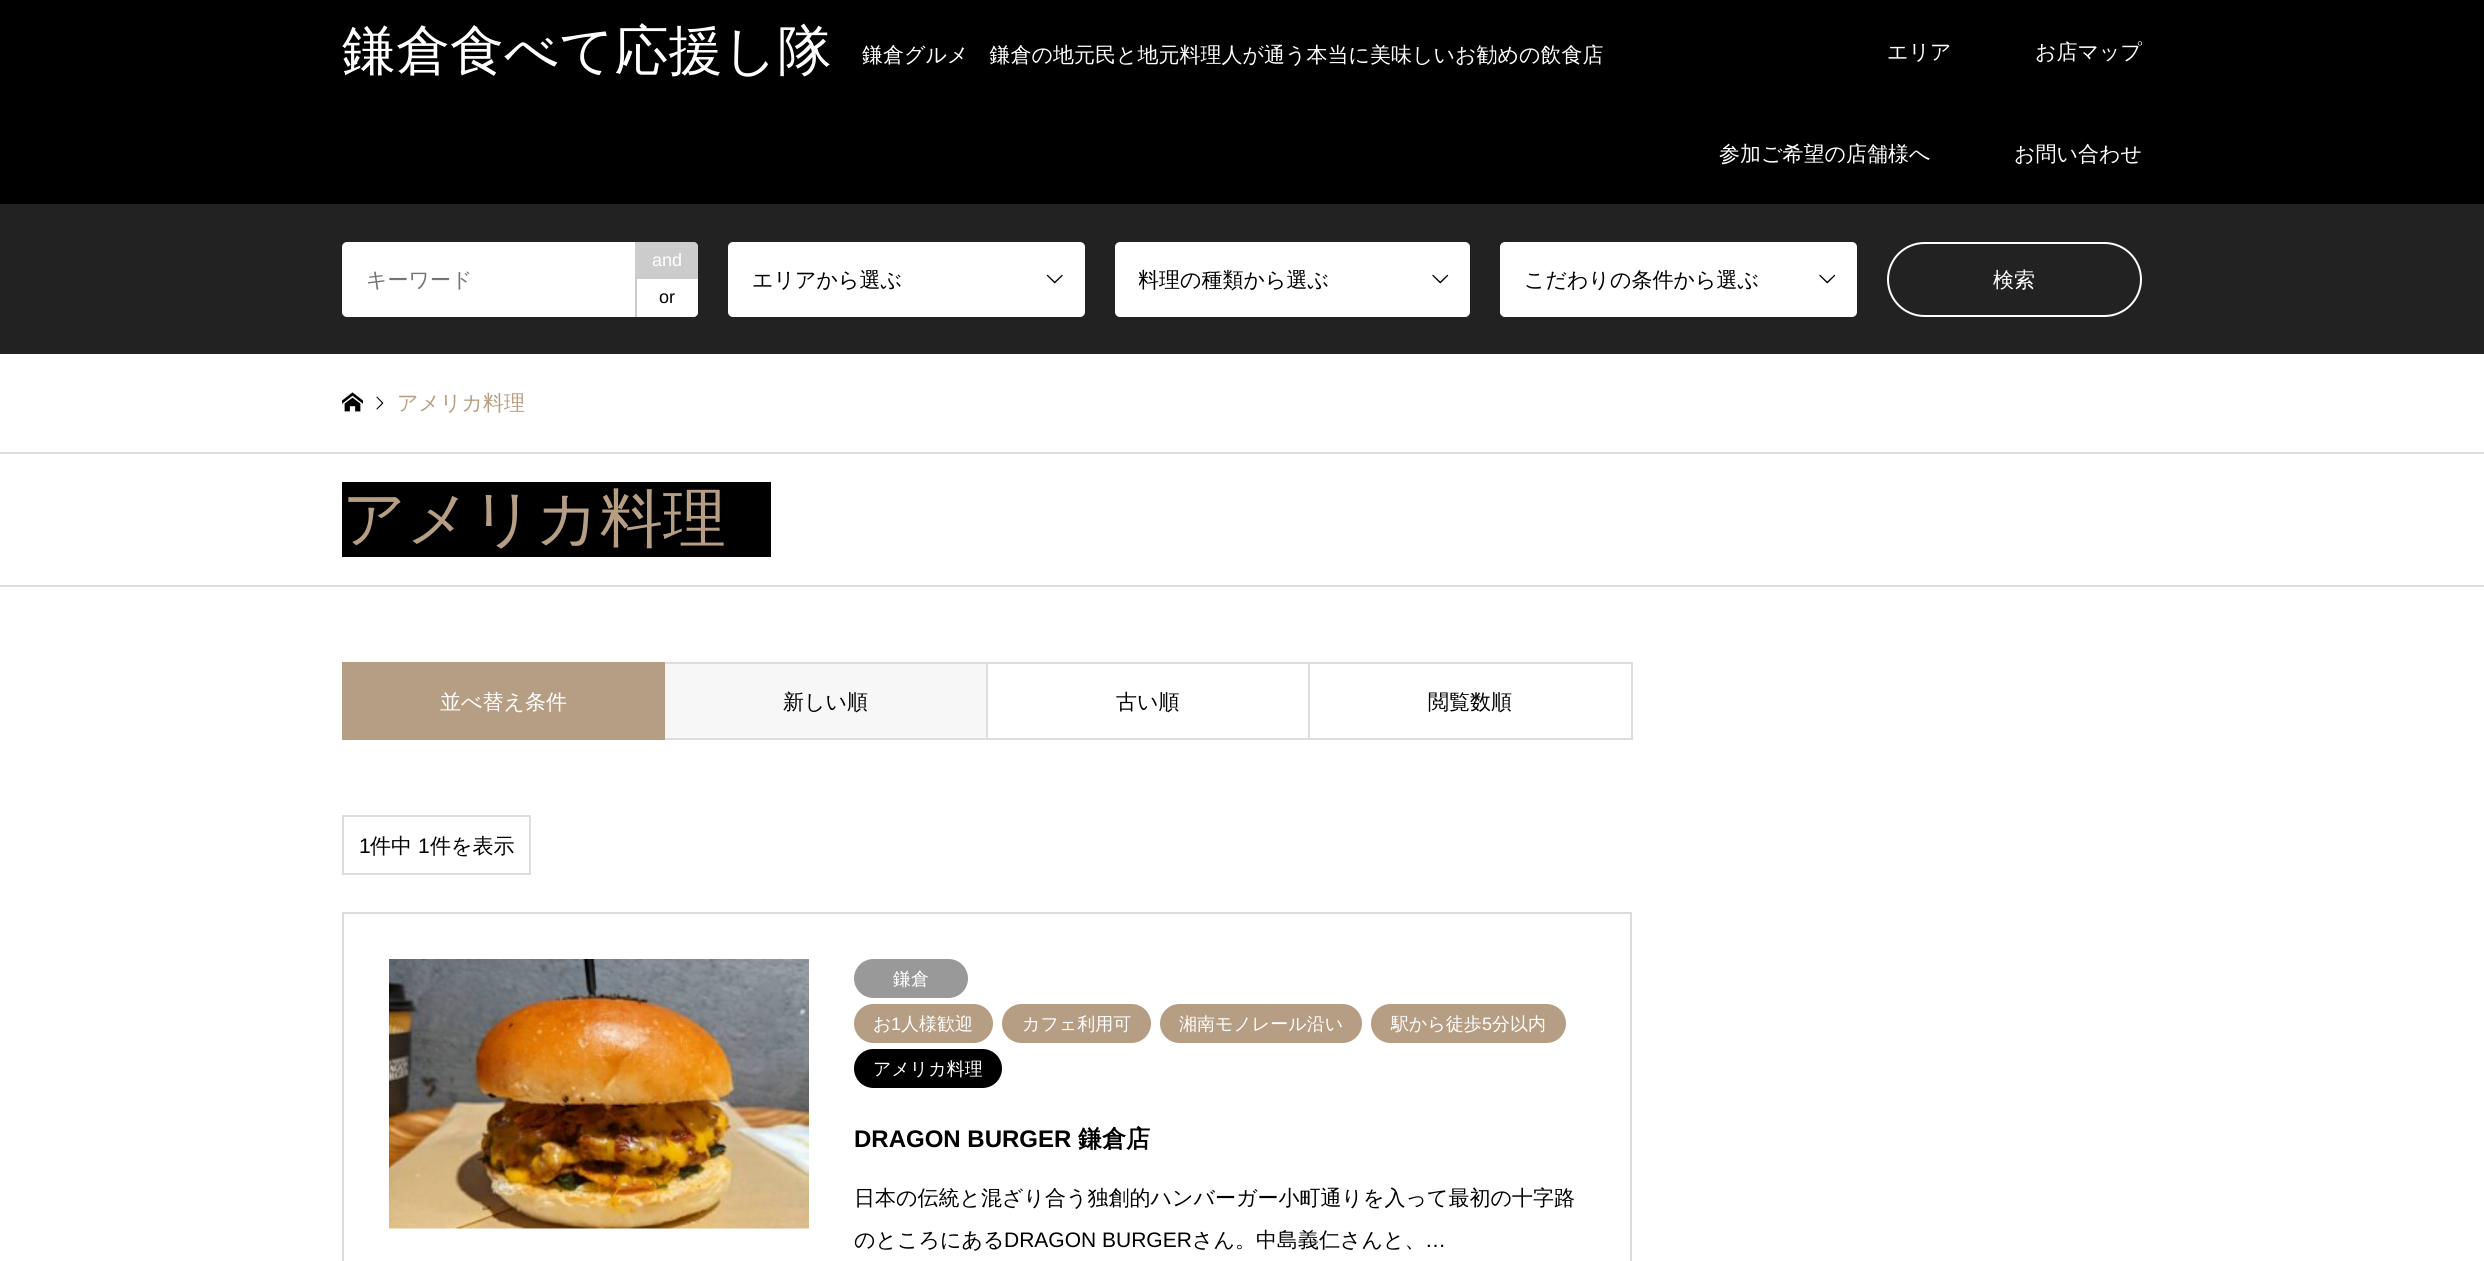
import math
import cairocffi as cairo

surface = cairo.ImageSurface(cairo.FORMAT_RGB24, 2484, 1261)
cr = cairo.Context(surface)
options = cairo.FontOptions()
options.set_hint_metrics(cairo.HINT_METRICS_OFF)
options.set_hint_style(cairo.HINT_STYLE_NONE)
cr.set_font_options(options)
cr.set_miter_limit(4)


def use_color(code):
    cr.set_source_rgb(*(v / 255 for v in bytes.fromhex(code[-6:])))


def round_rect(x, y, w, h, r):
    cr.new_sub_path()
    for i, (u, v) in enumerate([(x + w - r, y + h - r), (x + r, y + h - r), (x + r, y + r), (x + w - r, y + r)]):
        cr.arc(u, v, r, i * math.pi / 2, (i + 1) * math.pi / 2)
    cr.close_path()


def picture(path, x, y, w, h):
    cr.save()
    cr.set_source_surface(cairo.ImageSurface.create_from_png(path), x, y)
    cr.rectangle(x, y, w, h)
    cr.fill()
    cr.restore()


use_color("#ffffff")
cr.paint()
use_color("#000000")
cr.rectangle(0, 0, 2484, 204)
cr.fill()
cr.select_font_face("WenQuanYi Zen Hei Medium")
cr.set_font_size(54)
use_color("#ffffff")
cr.move_to(342, 69)
cr.show_text("鎌倉食べて応援し隊")
cr.set_font_size(21)
cr.move_to(862, 62)
cr.show_text("鎌倉グルメ　鎌倉の地元民と地元料理人が通う本当に美味しいお勧めの飲食店")
cr.move_to(1887, 59)
cr.show_text("エリア")
cr.move_to(2035, 59)
cr.show_text("お店マップ")
cr.move_to(1719, 161)
cr.show_text("参加ご希望の店舗様へ")
cr.move_to(2014, 161)
cr.show_text("お問い合わせ")
use_color("#222222")
cr.rectangle(0, 204, 2484, 150)
cr.fill()
use_color("#ffffff")
round_rect(342, 242, 356, 75, 5)
cr.fill()
use_color("#757575")
cr.move_to(366, 287)
cr.show_text("キーワード")
use_color("#cccccc")
cr.new_path()
cr.move_to(635, 242)
cr.line_to(693, 242)
cr.curve_to(696, 242, 698, 244, 698, 247)
cr.line_to(698, 279)
cr.line_to(635, 279)
cr.close_path()
cr.fill()
cr.select_font_face("Liberation Sans")
cr.set_font_size(18)
use_color("#ffffff")
cr.move_to(652, 266)
cr.show_text("and")
cr.new_path()
cr.move_to(635, 279)
cr.line_to(698, 279)
cr.line_to(698, 312)
cr.curve_to(698, 315, 696, 317, 693, 317)
cr.line_to(635, 317)
cr.close_path()
cr.fill()
use_color("#cccccc")
cr.rectangle(635, 279, 2, 38)
cr.fill()
use_color("#000000")
cr.move_to(659, 303)
cr.show_text("or")
use_color("#ffffff")
round_rect(728, 242, 357, 75, 5)
cr.fill()
cr.select_font_face("WenQuanYi Zen Hei Medium")
cr.set_font_size(21)
use_color("#000000")
cr.move_to(752, 287)
cr.show_text("エリアから選ぶ")
picture("img1.png", 1046, 274, 17, 10)
use_color("#ffffff")
round_rect(1115, 242, 355, 75, 5)
cr.fill()
cr.save()
cr.rectangle(1139, 242, 283, 75)
cr.clip()
use_color("#000000")
cr.move_to(1138, 287)
cr.show_text("料理の種類から選ぶ")
cr.restore()
picture("img2.png", 1432, 274, 17, 10)
round_rect(1500, 242, 357, 75, 5)
cr.fill()
use_color("#000000")
cr.move_to(1524, 287)
cr.show_text("こだわりの条件から選ぶ")
picture("img2.png", 1819, 274, 17, 10)
round_rect(1888, 243, 253, 73, 36.5)
use_color("#ffffff")
cr.stroke()
cr.move_to(1993, 287)
cr.show_text("検索")
use_color("#dddddd")
cr.rectangle(0, 452, 2484, 2)
cr.fill()
picture("img3.png", 342, 392, 21, 20)
picture("img4.png", 376, 396, 8, 14)
use_color("#b69e84")
cr.move_to(397, 410)
cr.show_text("アメリカ料理")
use_color("#dddddd")
cr.rectangle(0, 585, 2484, 2)
cr.fill()
use_color("#000000")
cr.rectangle(342, 482, 429, 75)
cr.fill()
cr.set_font_size(63)
use_color("#b69e84")
cr.move_to(342, 540)
cr.show_text("アメリカ料理")
cr.rectangle(342, 662, 323, 78)
cr.fill()
cr.set_font_size(21)
use_color("#ffffff")
cr.move_to(440, 709)
cr.show_text("並べ替え条件")
use_color("#f7f7f7")
cr.rectangle(665, 664, 321, 74)
cr.fill()
use_color("#dddddd")
cr.rectangle(665, 662, 322, 2)
cr.fill()
cr.rectangle(986, 662, 2, 78)
cr.fill()
cr.rectangle(665, 738, 322, 2)
cr.fill()
use_color("#000000")
cr.move_to(783, 709)
cr.show_text("新しい順")
use_color("#dddddd")
cr.rectangle(987, 662, 645, 2)
cr.fill()
cr.rectangle(1308, 662, 2, 78)
cr.fill()
cr.rectangle(987, 738, 323, 2)
cr.fill()
use_color("#000000")
cr.move_to(1116, 709)
cr.show_text("古い順")
use_color("#dddddd")
cr.rectangle(1631, 662, 2, 78)
cr.fill()
cr.rectangle(1310, 738, 322, 2)
cr.fill()
use_color("#000000")
cr.move_to(1428, 709)
cr.show_text("閲覧数順")
cr.rectangle(343, 816, 187, 58)
use_color("#dddddd")
cr.stroke()
cr.select_font_face("Liberation Sans")
use_color("#000000")
cr.move_to(359, 853)
cr.show_text("1")
cr.select_font_face("WenQuanYi Zen Hei Medium")
cr.move_to(370, 853)
cr.show_text("件中")
cr.select_font_face("Liberation Sans")
cr.move_to(418, 853)
cr.show_text("1")
cr.select_font_face("WenQuanYi Zen Hei Medium")
cr.move_to(430, 853)
cr.show_text("件を表示")
cr.rectangle(343, 913, 1288, 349)
use_color("#dddddd")
cr.stroke()
picture("img5.png", 389, 959, 420, 270)
use_color("#999999")
round_rect(854, 959, 114, 39, 19.5)
cr.fill()
cr.set_font_size(18)
use_color("#ffffff")
cr.move_to(893, 985)
cr.show_text("鎌倉")
use_color("#b69e84")
round_rect(854, 1004, 139, 39, 19.5)
cr.fill()
use_color("#ffffff")
cr.move_to(873, 1030)
cr.show_text("お")
cr.select_font_face("Liberation Sans")
cr.move_to(891, 1030)
cr.show_text("1")
cr.select_font_face("WenQuanYi Zen Hei Medium")
cr.move_to(901, 1030)
cr.show_text("人様歓迎")
use_color("#b69e84")
round_rect(1002, 1004, 149, 39, 19.5)
cr.fill()
use_color("#ffffff")
cr.move_to(1022, 1030)
cr.show_text("カフェ利用可")
use_color("#b69e84")
round_rect(1160, 1004, 202, 39, 19.5)
cr.fill()
use_color("#ffffff")
cr.move_to(1179, 1030)
cr.show_text("湘南モノレール沿い")
use_color("#b69e84")
round_rect(1371, 1004, 195, 39, 19.5)
cr.fill()
use_color("#ffffff")
cr.move_to(1391, 1030)
cr.show_text("駅から徒歩")
cr.select_font_face("Liberation Sans")
cr.move_to(1482, 1030)
cr.show_text("5")
cr.select_font_face("WenQuanYi Zen Hei Medium")
cr.move_to(1492, 1030)
cr.show_text("分以内")
use_color("#000000")
round_rect(854, 1049, 148, 39, 19.5)
cr.fill()
use_color("#ffffff")
cr.move_to(873, 1075)
cr.show_text("アメリカ料理")
cr.select_font_face("Liberation Sans", cairo.FONT_SLANT_NORMAL, cairo.FONT_WEIGHT_BOLD)
cr.set_font_size(24)
use_color("#000000")
cr.move_to(854, 1147)
cr.show_text("DRAGON BURGER")
cr.select_font_face("WenQuanYi Zen Hei", cairo.FONT_SLANT_NORMAL, cairo.FONT_WEIGHT_BOLD)
cr.move_to(1078, 1147)
cr.show_text("鎌倉店")
cr.select_font_face("WenQuanYi Zen Hei Medium")
cr.set_font_size(21)
cr.move_to(854, 1205)
cr.show_text("日本の伝統と混ざり合う独創的ハンバーガー小町通りを入って最初の十字路")
cr.move_to(854, 1247)
cr.show_text("のところにある")
cr.select_font_face("Liberation Sans")
cr.move_to(1004, 1247)
cr.show_text("DRAGON BURGER")
cr.select_font_face("WenQuanYi Zen Hei Medium")
cr.move_to(1192, 1247)
cr.show_text("さん。中島義仁さんと、")
cr.select_font_face("Liberation Sans")
cr.move_to(1425, 1247)
cr.show_text("…")
surface.write_to_png("result.png")
